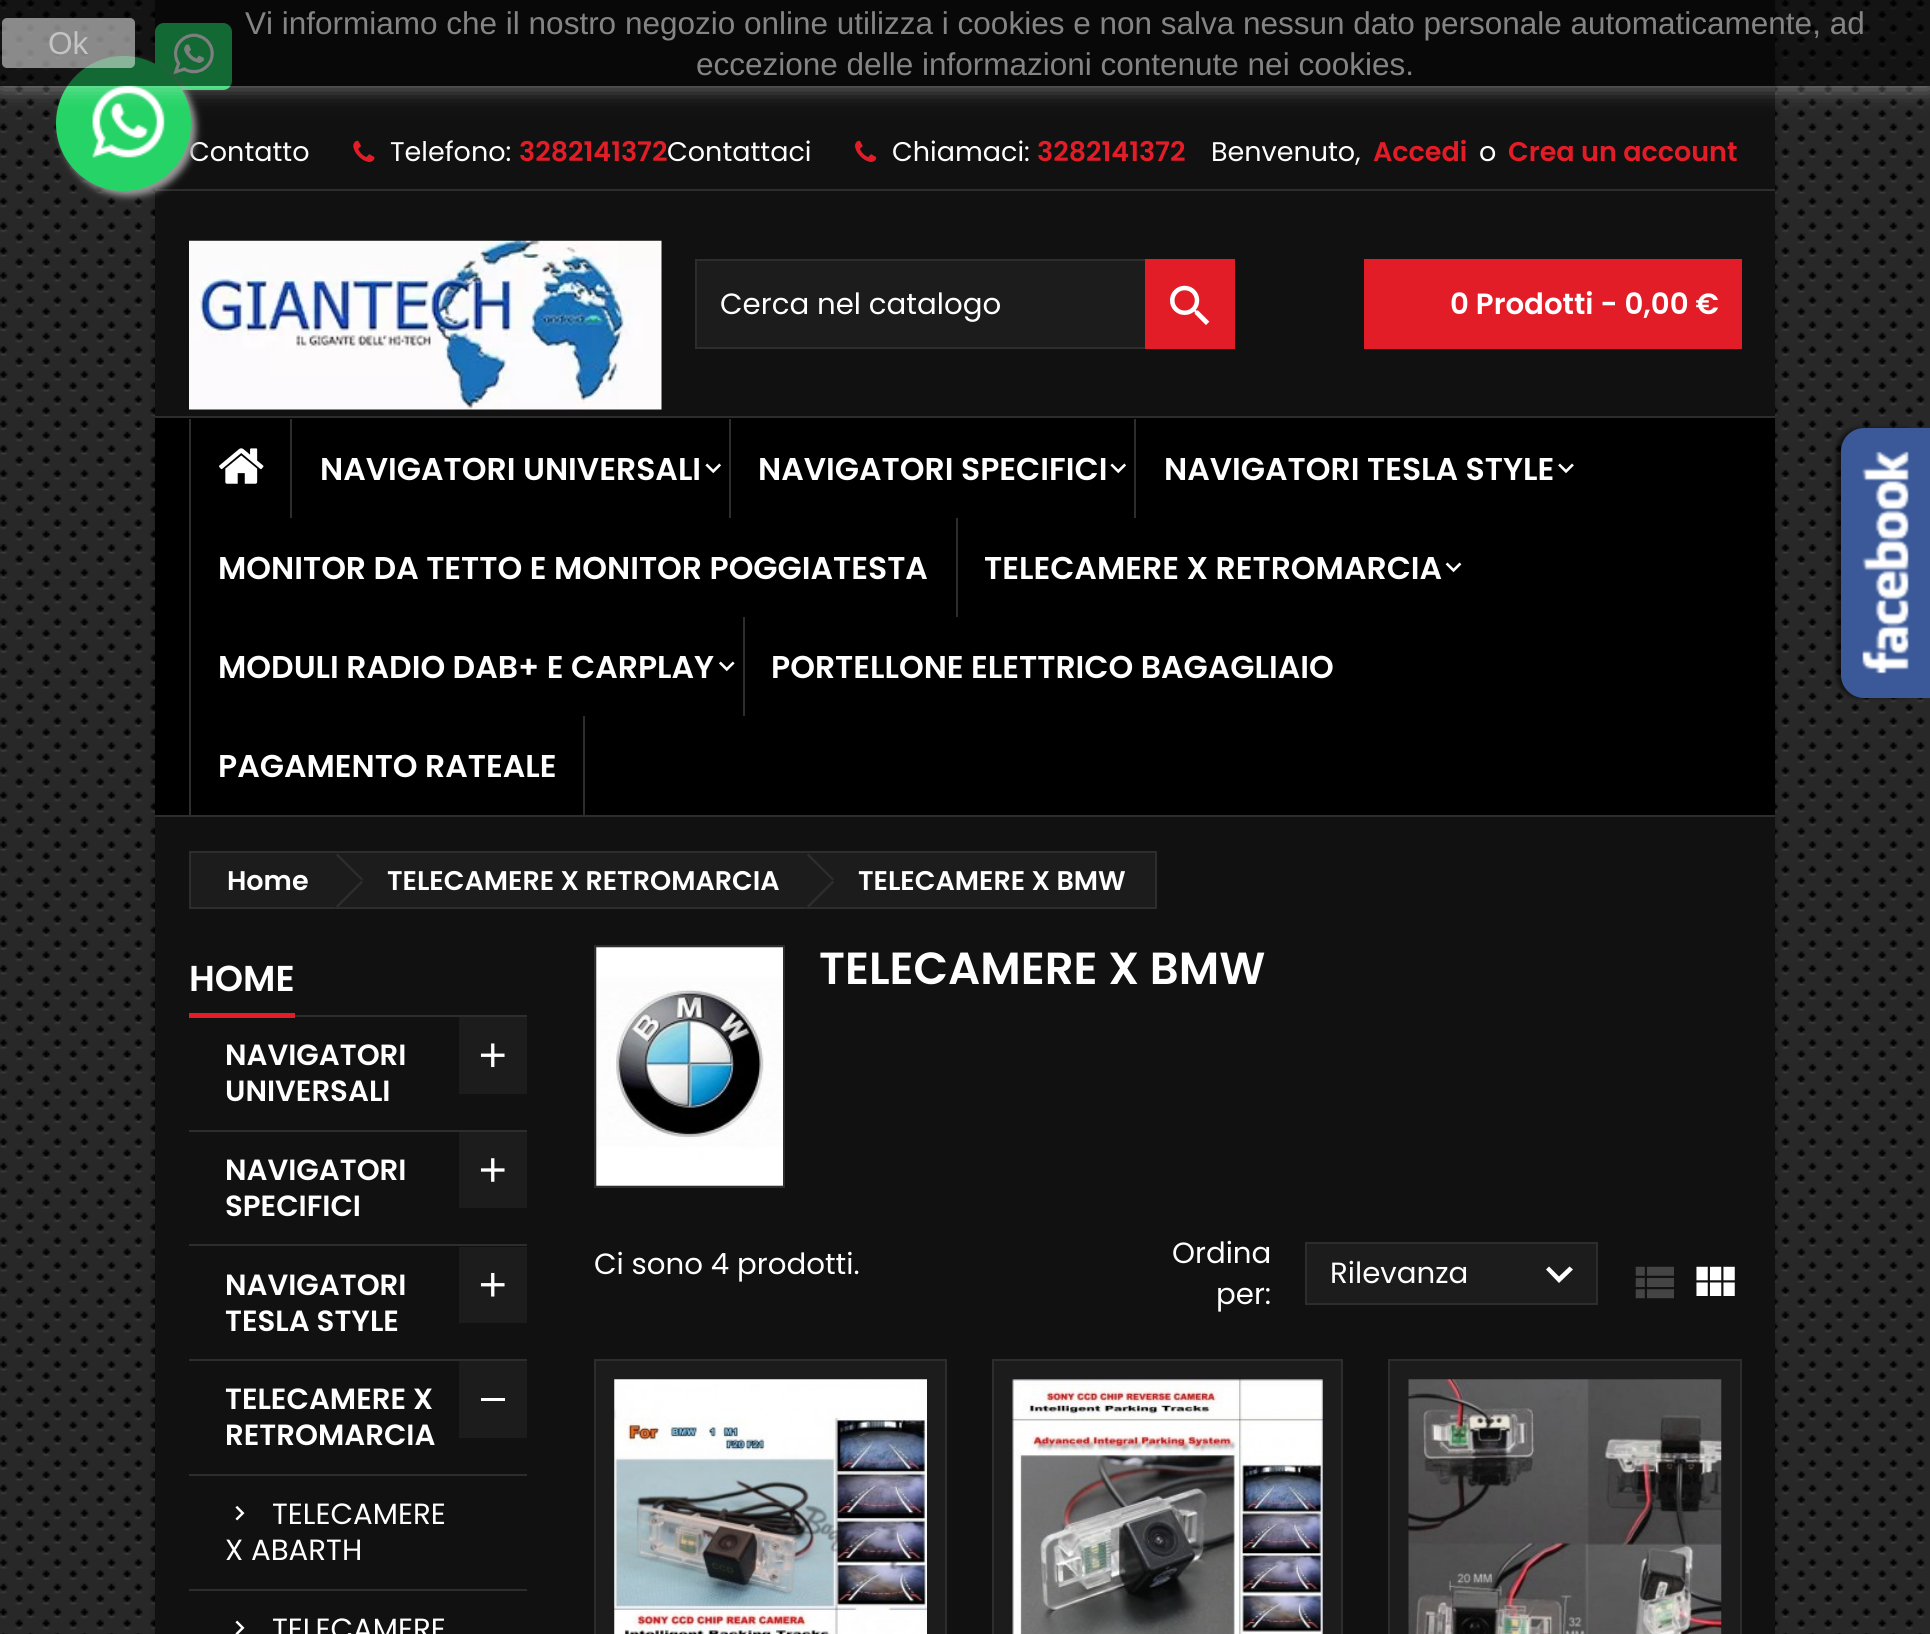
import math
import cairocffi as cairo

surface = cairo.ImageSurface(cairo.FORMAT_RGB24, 1930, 1634)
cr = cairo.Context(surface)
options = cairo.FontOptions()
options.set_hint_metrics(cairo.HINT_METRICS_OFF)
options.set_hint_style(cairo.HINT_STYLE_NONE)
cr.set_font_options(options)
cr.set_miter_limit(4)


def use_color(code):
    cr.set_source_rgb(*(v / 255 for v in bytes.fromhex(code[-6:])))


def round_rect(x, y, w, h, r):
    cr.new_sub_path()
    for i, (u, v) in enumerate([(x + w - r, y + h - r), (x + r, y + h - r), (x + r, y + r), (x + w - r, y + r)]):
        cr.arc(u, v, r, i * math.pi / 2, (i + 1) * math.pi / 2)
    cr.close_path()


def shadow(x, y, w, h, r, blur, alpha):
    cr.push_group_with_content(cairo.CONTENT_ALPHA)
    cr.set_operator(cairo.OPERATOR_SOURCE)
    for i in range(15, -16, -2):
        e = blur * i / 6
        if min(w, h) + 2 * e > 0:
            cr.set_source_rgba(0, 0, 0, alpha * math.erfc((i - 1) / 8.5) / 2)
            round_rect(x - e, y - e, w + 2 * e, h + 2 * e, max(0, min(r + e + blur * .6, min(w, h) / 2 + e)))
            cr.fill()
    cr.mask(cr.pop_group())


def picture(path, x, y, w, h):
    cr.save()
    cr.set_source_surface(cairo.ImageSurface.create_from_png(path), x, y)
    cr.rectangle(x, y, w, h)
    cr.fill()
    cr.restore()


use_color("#282828")
cr.paint()
picture("img1.png", 0, 0, 1925, 1634)
use_color("#000000")
shadow(155, 0, 1620, 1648, 0, 4.5, 0.2)
use_color("#111111")
cr.rectangle(155, 0, 1620, 1634)
cr.fill()
use_color("#25d366")
round_rect(155, 23, 77, 67, 9)
cr.fill()
picture("img2.png", 173, 33, 41, 42)
use_color("#2d2d2d")
cr.rectangle(155, 189, 1620, 2)
cr.fill()
cr.select_font_face("Poppins")
cr.set_font_size(27)
use_color("#ffffff")
cr.move_to(189, 161)
cr.show_text("Contatto")
use_color("#999999")
shadow(61, 61, 135, 135, 67.5, 3.5, 1)
use_color("#25d366")
cr.arc(123.5, 123.5, 67.5, 0, 2 * math.pi)
cr.fill()
picture("img24.png", 92, 85, 73, 73)
cr.save()
cr.set_fill_rule(cairo.FILL_RULE_EVEN_ODD)
cr.new_path()
cr.move_to(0, 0)
cr.line_to(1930, 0)
cr.line_to(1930, 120)
cr.line_to(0, 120)
cr.close_path()
cr.move_to(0, 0)
cr.line_to(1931, 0)
cr.line_to(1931, 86)
cr.line_to(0, 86)
cr.close_path()
cr.clip()
use_color("#ffffff")
shadow(0, 0, 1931, 86, 0, 11, 0.5)
cr.restore()
cr.set_source_rgba(0, 0, 0, 0.5)
cr.rectangle(0, 0, 1930, 86)
cr.fill()
cr.set_source_rgba(1, 1, 1, 0.5)
round_rect(2, 18, 133, 50, 5)
cr.fill()
cr.select_font_face("Liberation Sans")
cr.set_font_size(31.5)
use_color("#c4c4c4")
cr.move_to(48, 54)
cr.show_text("Ok")
use_color("#848484")
cr.move_to(245, 34)
cr.show_text("Vi informiamo che il nostro negozio online utilizza i cookies e non salva nessun dato personale automaticamente, ad")
cr.move_to(696, 75)
cr.show_text("eccezione delle informazioni contenute nei cookies.")
picture("img3.png", 353, 140, 22, 22)
cr.select_font_face("Poppins")
cr.set_font_size(27)
use_color("#ffffff")
cr.move_to(390, 161)
cr.show_text("Telefono:")
cr.select_font_face("Poppins SemiBold")
use_color("#e31d27")
cr.move_to(519, 161)
cr.show_text("3282141372")
cr.select_font_face("Poppins")
use_color("#ffffff")
cr.move_to(667, 161)
cr.show_text("Contattaci")
picture("img4.png", 855, 140, 22, 22)
cr.move_to(892, 161)
cr.show_text("Chiamaci:")
cr.select_font_face("Poppins SemiBold")
use_color("#e31d27")
cr.move_to(1037, 161)
cr.show_text("3282141372")
cr.select_font_face("Poppins")
use_color("#ffffff")
cr.move_to(1211, 161)
cr.show_text("Benvenuto,")
cr.select_font_face("Poppins SemiBold")
use_color("#e31d27")
cr.move_to(1373, 161)
cr.show_text("Accedi")
cr.select_font_face("Poppins")
use_color("#ffffff")
cr.move_to(1479, 161)
cr.show_text("o")
cr.select_font_face("Poppins SemiBold")
use_color("#e31d27")
cr.move_to(1508, 161)
cr.show_text("Crea un account")
picture("img5.png", 189, 240, 473, 170)
use_color("#1c1c1c")
cr.rectangle(697, 261, 448, 86)
cr.fill()
cr.rectangle(696, 260, 538, 88)
use_color("#2d2d2d")
cr.stroke()
cr.select_font_face("Poppins")
cr.set_font_size(29.25)
use_color("#ffffff")
cr.move_to(720, 314)
cr.show_text("Cerca nel catalogo")
use_color("#e31d27")
cr.rectangle(1145, 259, 90, 90)
cr.fill()
picture("img6.png", 1170, 285, 40, 40)
cr.rectangle(1364, 259, 378, 90)
cr.fill()
cr.select_font_face("Poppins SemiBold")
use_color("#ffffff")
cr.move_to(1450, 314)
cr.show_text("0 Prodotti - 0,00 €")
use_color("#000000")
cr.rectangle(155, 418, 1620, 397)
cr.fill()
use_color("#2d2d2d")
cr.rectangle(155, 416, 1620, 2)
cr.fill()
cr.rectangle(155, 815, 1620, 2)
cr.fill()
cr.rectangle(189, 419, 2, 396)
cr.fill()
picture("img7.png", 219, 448, 45, 36)
cr.rectangle(290, 419, 2, 99)
cr.fill()
cr.set_font_size(31.5)
use_color("#ffffff")
cr.move_to(320, 480)
cr.show_text("NAVIGATORI UNIVERSALI")
picture("img8.png", 705, 463, 16, 11)
use_color("#2d2d2d")
cr.rectangle(729, 419, 2, 99)
cr.fill()
use_color("#ffffff")
cr.move_to(758, 480)
cr.show_text("NAVIGATORI SPECIFICI")
picture("img8.png", 1110, 463, 16, 11)
use_color("#2d2d2d")
cr.rectangle(1134, 419, 2, 99)
cr.fill()
use_color("#ffffff")
cr.move_to(1164, 480)
cr.show_text("NAVIGATORI TESLA STYLE")
picture("img9.png", 1558, 463, 16, 11)
cr.move_to(218, 579)
cr.show_text("MONITOR DA TETTO E MONITOR POGGIATESTA")
use_color("#2d2d2d")
cr.rectangle(956, 518, 2, 99)
cr.fill()
use_color("#ffffff")
cr.move_to(984, 579)
cr.show_text("TELECAMERE X RETROMARCIA")
picture("img10.png", 1445, 562, 17, 11)
cr.move_to(218, 678)
cr.show_text("MODULI RADIO DAB+ E CARPLAY")
picture("img11.png", 719, 661, 16, 11)
use_color("#2d2d2d")
cr.rectangle(743, 617, 2, 99)
cr.fill()
use_color("#ffffff")
cr.move_to(771, 678)
cr.show_text("PORTELLONE ELETTRICO BAGAGLIAIO")
use_color("#2d2d2d")
cr.rectangle(583, 716, 2, 99)
cr.fill()
use_color("#ffffff")
cr.move_to(218, 777)
cr.show_text("PAGAMENTO RATEALE")
use_color("#000000")
shadow(1836, 428, 90, 270, 23, 2, 0.5)
use_color("#3b5998")
cr.new_path()
cr.move_to(1864, 428)
cr.line_to(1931, 428)
cr.line_to(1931, 698)
cr.line_to(1864, 698)
cr.curve_to(1851.5, 698, 1841, 687.5, 1841, 675)
cr.line_to(1841, 451)
cr.curve_to(1841, 438.5, 1851.5, 428, 1864, 428)
cr.close_path()
cr.fill()
picture("img12.png", 1862, 451, 47, 223)
use_color("#1c1c1c")
cr.rectangle(190, 852, 966, 56)
cr.fill_preserve()
use_color("#2d2d2d")
cr.stroke()
cr.set_font_size(27)
use_color("#ffffff")
cr.move_to(227, 890)
cr.show_text("Home")
use_color("#1c1c1c")
cr.new_path()
cr.move_to(339, 855)
cr.line_to(361, 878)
cr.curve_to(363, 879, 363, 882, 361, 884)
cr.line_to(339, 906)
cr.curve_to(337, 908, 334, 908, 333, 906)
cr.line_to(310, 884)
cr.curve_to(309, 882, 309, 879, 310, 878)
cr.line_to(333, 855)
cr.curve_to(334, 854, 337, 854, 339, 855)
cr.close_path()
cr.fill()
use_color("#2d2d2d")
cr.new_path()
cr.move_to(337.5, 853.5)
cr.line_to(363, 879)
cr.line_to(361.5, 880.5)
cr.line_to(336, 855.5)
cr.close_path()
cr.fill()
cr.new_path()
cr.move_to(361.5, 880.5)
cr.line_to(363, 882.5)
cr.line_to(337.5, 908)
cr.line_to(336, 906)
cr.close_path()
cr.fill()
use_color("#ffffff")
cr.move_to(387, 890)
cr.show_text("TELECAMERE X RETROMARCIA")
use_color("#1c1c1c")
cr.new_path()
cr.move_to(810, 855)
cr.line_to(832, 878)
cr.curve_to(834, 879, 834, 882, 832, 884)
cr.line_to(810, 906)
cr.curve_to(808, 908, 806, 908, 804, 906)
cr.line_to(781, 884)
cr.curve_to(780, 882, 780, 879, 781, 878)
cr.line_to(804, 855)
cr.curve_to(806, 854, 808, 854, 810, 855)
cr.close_path()
cr.fill()
use_color("#2d2d2d")
cr.new_path()
cr.move_to(808.5, 853.5)
cr.line_to(834, 879)
cr.line_to(832.5, 880.5)
cr.line_to(807, 855.5)
cr.close_path()
cr.fill()
cr.new_path()
cr.move_to(832.5, 880.5)
cr.line_to(834, 882.5)
cr.line_to(808.5, 908)
cr.line_to(807, 906)
cr.close_path()
cr.fill()
use_color("#ffffff")
cr.move_to(858, 890)
cr.show_text("TELECAMERE X BMW")
use_color("#2d2d2d")
cr.rectangle(295, 1015, 232, 2)
cr.fill()
use_color("#e31d27")
cr.rectangle(189, 1013, 106, 5)
cr.fill()
cr.set_font_size(36)
use_color("#ffffff")
cr.move_to(189, 991)
cr.show_text("HOME")
use_color("#2d2d2d")
cr.rectangle(189, 1130, 338, 2)
cr.fill()
cr.set_font_size(29.25)
use_color("#ffffff")
cr.move_to(225, 1065)
cr.show_text("NAVIGATORI")
cr.move_to(225, 1101)
cr.show_text("UNIVERSALI")
use_color("#1c1c1c")
cr.rectangle(459, 1017, 68, 77)
cr.fill()
picture("img13.png", 480, 1043, 25, 25)
use_color("#2d2d2d")
cr.rectangle(189, 1244, 338, 2)
cr.fill()
use_color("#ffffff")
cr.move_to(225, 1180)
cr.show_text("NAVIGATORI")
cr.move_to(225, 1216)
cr.show_text("SPECIFICI")
use_color("#1c1c1c")
cr.rectangle(459, 1132, 68, 76)
cr.fill()
picture("img14.png", 480, 1158, 25, 24)
use_color("#2d2d2d")
cr.rectangle(189, 1359, 338, 2)
cr.fill()
use_color("#ffffff")
cr.move_to(225, 1295)
cr.show_text("NAVIGATORI")
cr.move_to(225, 1331)
cr.show_text("TESLA STYLE")
use_color("#1c1c1c")
cr.rectangle(459, 1247, 68, 76)
cr.fill()
picture("img15.png", 480, 1272, 25, 25)
use_color("#2d2d2d")
cr.rectangle(189, 1474, 338, 2)
cr.fill()
use_color("#ffffff")
cr.move_to(225, 1409)
cr.show_text("TELECAMERE X")
cr.move_to(225, 1445)
cr.show_text("RETROMARCIA")
use_color("#1c1c1c")
cr.rectangle(459, 1361, 68, 77)
cr.fill()
use_color("#ffffff")
cr.rectangle(481, 1398, 24, 3)
cr.fill()
use_color("#2d2d2d")
cr.rectangle(189, 1589, 338, 2)
cr.fill()
picture("img16.png", 235, 1505, 10, 16)
cr.select_font_face("Poppins")
use_color("#ffffff")
cr.move_to(272, 1524)
cr.show_text("TELECAMERE")
cr.move_to(225, 1560)
cr.show_text("X ABARTH")
picture("img17.png", 235, 1620, 10, 14)
cr.move_to(272, 1639)
cr.show_text("TELECAMERE")
cr.rectangle(595, 946, 189, 241)
use_color("#2d2d2d")
cr.stroke()
picture("img18.png", 596, 947, 187, 239)
cr.select_font_face("Poppins SemiBold")
cr.set_font_size(45)
use_color("#ffffff")
cr.move_to(819, 984)
cr.show_text("TELECAMERE X BMW")
cr.select_font_face("Poppins")
cr.set_font_size(29.25)
cr.move_to(594, 1274)
cr.show_text("Ci sono 4 prodotti.")
cr.move_to(1172, 1263)
cr.show_text("Ordina")
cr.move_to(1216, 1304)
cr.show_text("per:")
use_color("#1c1c1c")
cr.rectangle(1306, 1243, 291, 61)
cr.fill_preserve()
use_color("#2d2d2d")
cr.stroke()
use_color("#ffffff")
cr.move_to(1330, 1283)
cr.show_text("Rilevanza")
cr.new_path()
cr.move_to(1549, 1266.5)
cr.line_to(1559, 1276.5)
cr.line_to(1569.5, 1266.5)
cr.line_to(1573, 1269.5)
cr.line_to(1559, 1283)
cr.line_to(1546, 1269.5)
cr.close_path()
cr.fill()
picture("img19.png", 1635, 1266, 39, 33)
picture("img20.png", 1696, 1266, 39, 30)
use_color("#1c1c1c")
cr.rectangle(595, 1360, 351, 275)
cr.fill_preserve()
use_color("#2d2d2d")
cr.stroke()
picture("img21.png", 614, 1379, 313, 255)
use_color("#1c1c1c")
cr.rectangle(993, 1360, 349, 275)
cr.fill_preserve()
use_color("#2d2d2d")
cr.stroke()
picture("img22.png", 1012, 1379, 311, 255)
use_color("#1c1c1c")
cr.rectangle(1389, 1360, 352, 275)
cr.fill_preserve()
use_color("#2d2d2d")
cr.stroke()
picture("img23.png", 1408, 1379, 314, 255)
surface.write_to_png("result.png")
